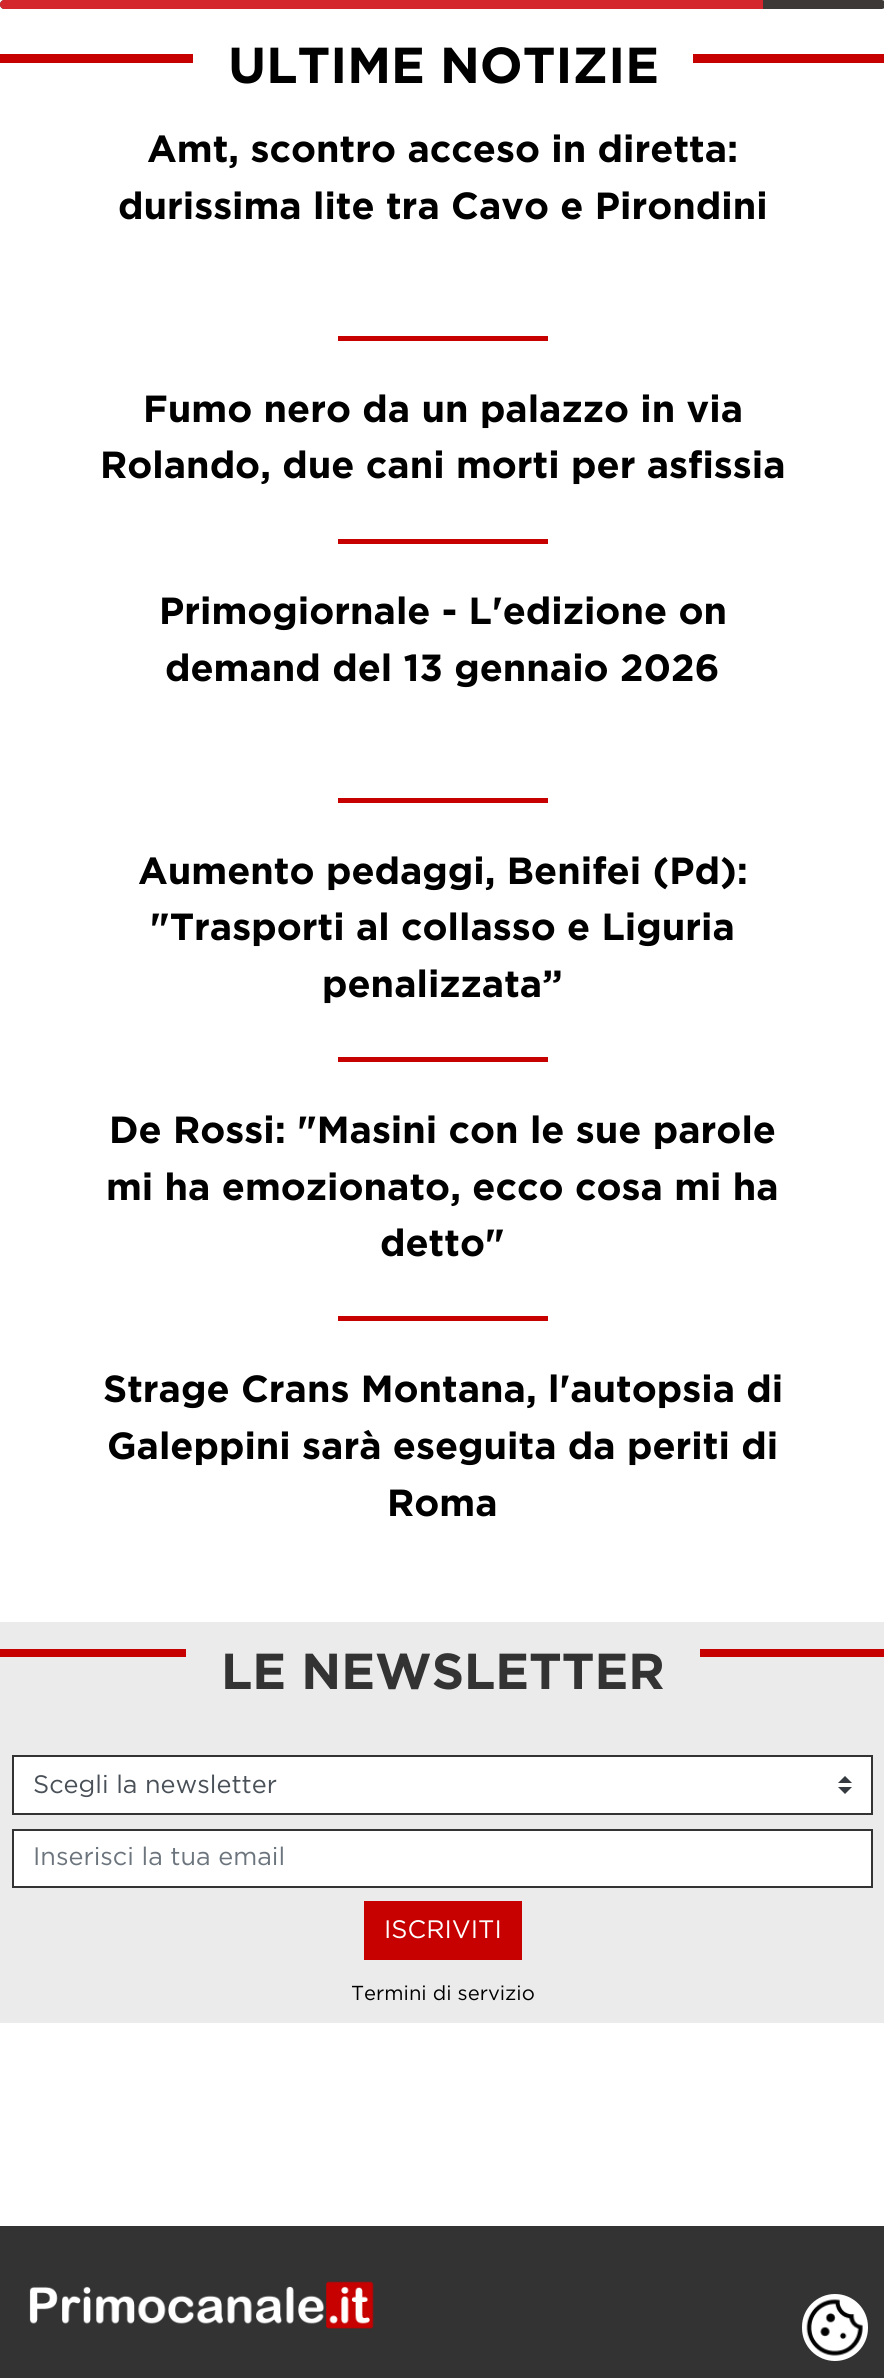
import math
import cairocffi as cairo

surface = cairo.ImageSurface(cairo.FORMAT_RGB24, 884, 2378)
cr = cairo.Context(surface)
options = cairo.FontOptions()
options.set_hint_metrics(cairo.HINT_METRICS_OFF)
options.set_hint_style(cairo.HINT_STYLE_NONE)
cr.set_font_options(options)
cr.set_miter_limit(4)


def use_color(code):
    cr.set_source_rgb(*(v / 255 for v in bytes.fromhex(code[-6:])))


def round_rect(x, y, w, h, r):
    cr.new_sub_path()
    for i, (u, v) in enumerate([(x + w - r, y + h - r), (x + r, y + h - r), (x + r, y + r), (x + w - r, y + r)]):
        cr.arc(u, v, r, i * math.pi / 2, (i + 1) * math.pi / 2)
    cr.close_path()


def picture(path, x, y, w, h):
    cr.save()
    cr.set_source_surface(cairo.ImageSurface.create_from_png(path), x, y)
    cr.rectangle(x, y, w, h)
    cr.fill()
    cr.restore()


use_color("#ffffff")
cr.paint()
use_color("#3d3936")
round_rect(0, 0, 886, 9, 4.5)
cr.fill()
use_color("#d3262d")
cr.new_path()
cr.move_to(4.5, 0)
cr.line_to(763, 0)
cr.line_to(763, 9)
cr.line_to(4.5, 9)
cr.curve_to(2, 9, 0, 7, 0, 4.5)
cr.curve_to(0, 2, 2, 0, 4.5, 0)
cr.close_path()
cr.fill()
use_color("#c70000")
cr.rectangle(0, 54, 884, 9)
cr.fill()
use_color("#ffffff")
cr.rectangle(193, 54, 500, 9)
cr.fill()
cr.select_font_face("Gotham", cairo.FONT_SLANT_NORMAL, cairo.FONT_WEIGHT_BOLD)
cr.set_font_size(50.5)
use_color("#000000")
cr.move_to(228, 83)
cr.show_text("ULTIME NOTIZIE")
cr.set_font_size(37.75)
cr.move_to(147, 162)
cr.show_text("Amt, scontro acceso in diretta:")
cr.move_to(118, 219)
cr.show_text("durissima lite tra Cavo e Pirondini")
use_color("#c70000")
cr.rectangle(338, 336, 210, 5)
cr.fill()
use_color("#000000")
cr.move_to(143, 422)
cr.show_text("Fumo nero da un palazzo in via")
cr.move_to(100, 478)
cr.show_text("Rolando, due cani morti per asfissia")
use_color("#c70000")
cr.rectangle(338, 539, 210, 5)
cr.fill()
use_color("#000000")
cr.move_to(159, 624)
cr.show_text("Primogiornale - L'edizione on")
cr.move_to(165, 681)
cr.show_text("demand del 13 gennaio 2026")
use_color("#c70000")
cr.rectangle(338, 798, 210, 5)
cr.fill()
use_color("#000000")
cr.move_to(138, 884)
cr.show_text("Aumento pedaggi, Benifei (Pd):")
cr.move_to(150, 940)
cr.show_text("\"Trasporti al collasso e Liguria")
cr.move_to(322, 997)
cr.show_text("penalizzata”")
use_color("#c70000")
cr.rectangle(338, 1057, 210, 5)
cr.fill()
use_color("#000000")
cr.move_to(109, 1143)
cr.show_text("De Rossi: \"Masini con le sue parole")
cr.move_to(106, 1200)
cr.show_text("mi ha emozionato, ecco cosa mi ha")
cr.move_to(380, 1256)
cr.show_text("detto\"")
use_color("#c70000")
cr.rectangle(338, 1316, 210, 5)
cr.fill()
use_color("#000000")
cr.move_to(103, 1402)
cr.show_text("Strage Crans Montana, l'autopsia di")
cr.move_to(107, 1459)
cr.show_text("Galeppini sarà eseguita da periti di")
cr.move_to(387, 1516)
cr.show_text("Roma")
use_color("#ebebeb")
cr.rectangle(0, 1622, 884, 401)
cr.fill()
use_color("#c70000")
cr.rectangle(0, 1649, 884, 8)
cr.fill()
use_color("#ebebeb")
cr.rectangle(186, 1649, 514, 8)
cr.fill()
cr.set_font_size(50.5)
use_color("#333333")
cr.move_to(221, 1689)
cr.show_text("LE NEWSLETTER")
use_color("#ffffff")
cr.rectangle(14, 1757, 857, 56)
cr.fill()
use_color("#343a40")
cr.new_path()
cr.move_to(845, 1776)
cr.line_to(838, 1783)
cr.line_to(852, 1783)
cr.close_path()
cr.move_to(845, 1794)
cr.line_to(838, 1787)
cr.line_to(852, 1787)
cr.close_path()
cr.fill()
cr.rectangle(13, 1756, 859, 58)
use_color("#333333")
cr.stroke()
cr.select_font_face("Gotham")
cr.set_font_size(25.25)
use_color("#495057")
cr.move_to(33, 1793)
cr.show_text("Scegli la newsletter")
use_color("#ffffff")
cr.rectangle(13, 1830, 859, 57)
cr.fill_preserve()
use_color("#333333")
cr.stroke()
use_color("#6c757d")
cr.move_to(33, 1865)
cr.show_text("Inserisci la tua email")
use_color("#c70000")
cr.rectangle(364, 1901, 158, 59)
cr.fill()
use_color("#ffffff")
cr.move_to(384, 1938)
cr.show_text("ISCRIVITI")
cr.set_font_size(20.25)
use_color("#000000")
cr.move_to(351, 2000)
cr.show_text("Termini di servizio")
use_color("#333333")
cr.rectangle(0, 2226, 884, 152)
cr.fill()
picture("img1.png", 29, 2281, 345, 48)
use_color("#ffffff")
round_rect(802, 2294, 66, 67, 33)
cr.fill()
picture("img2.png", 806, 2299, 57, 57)
surface.write_to_png("result.png")
